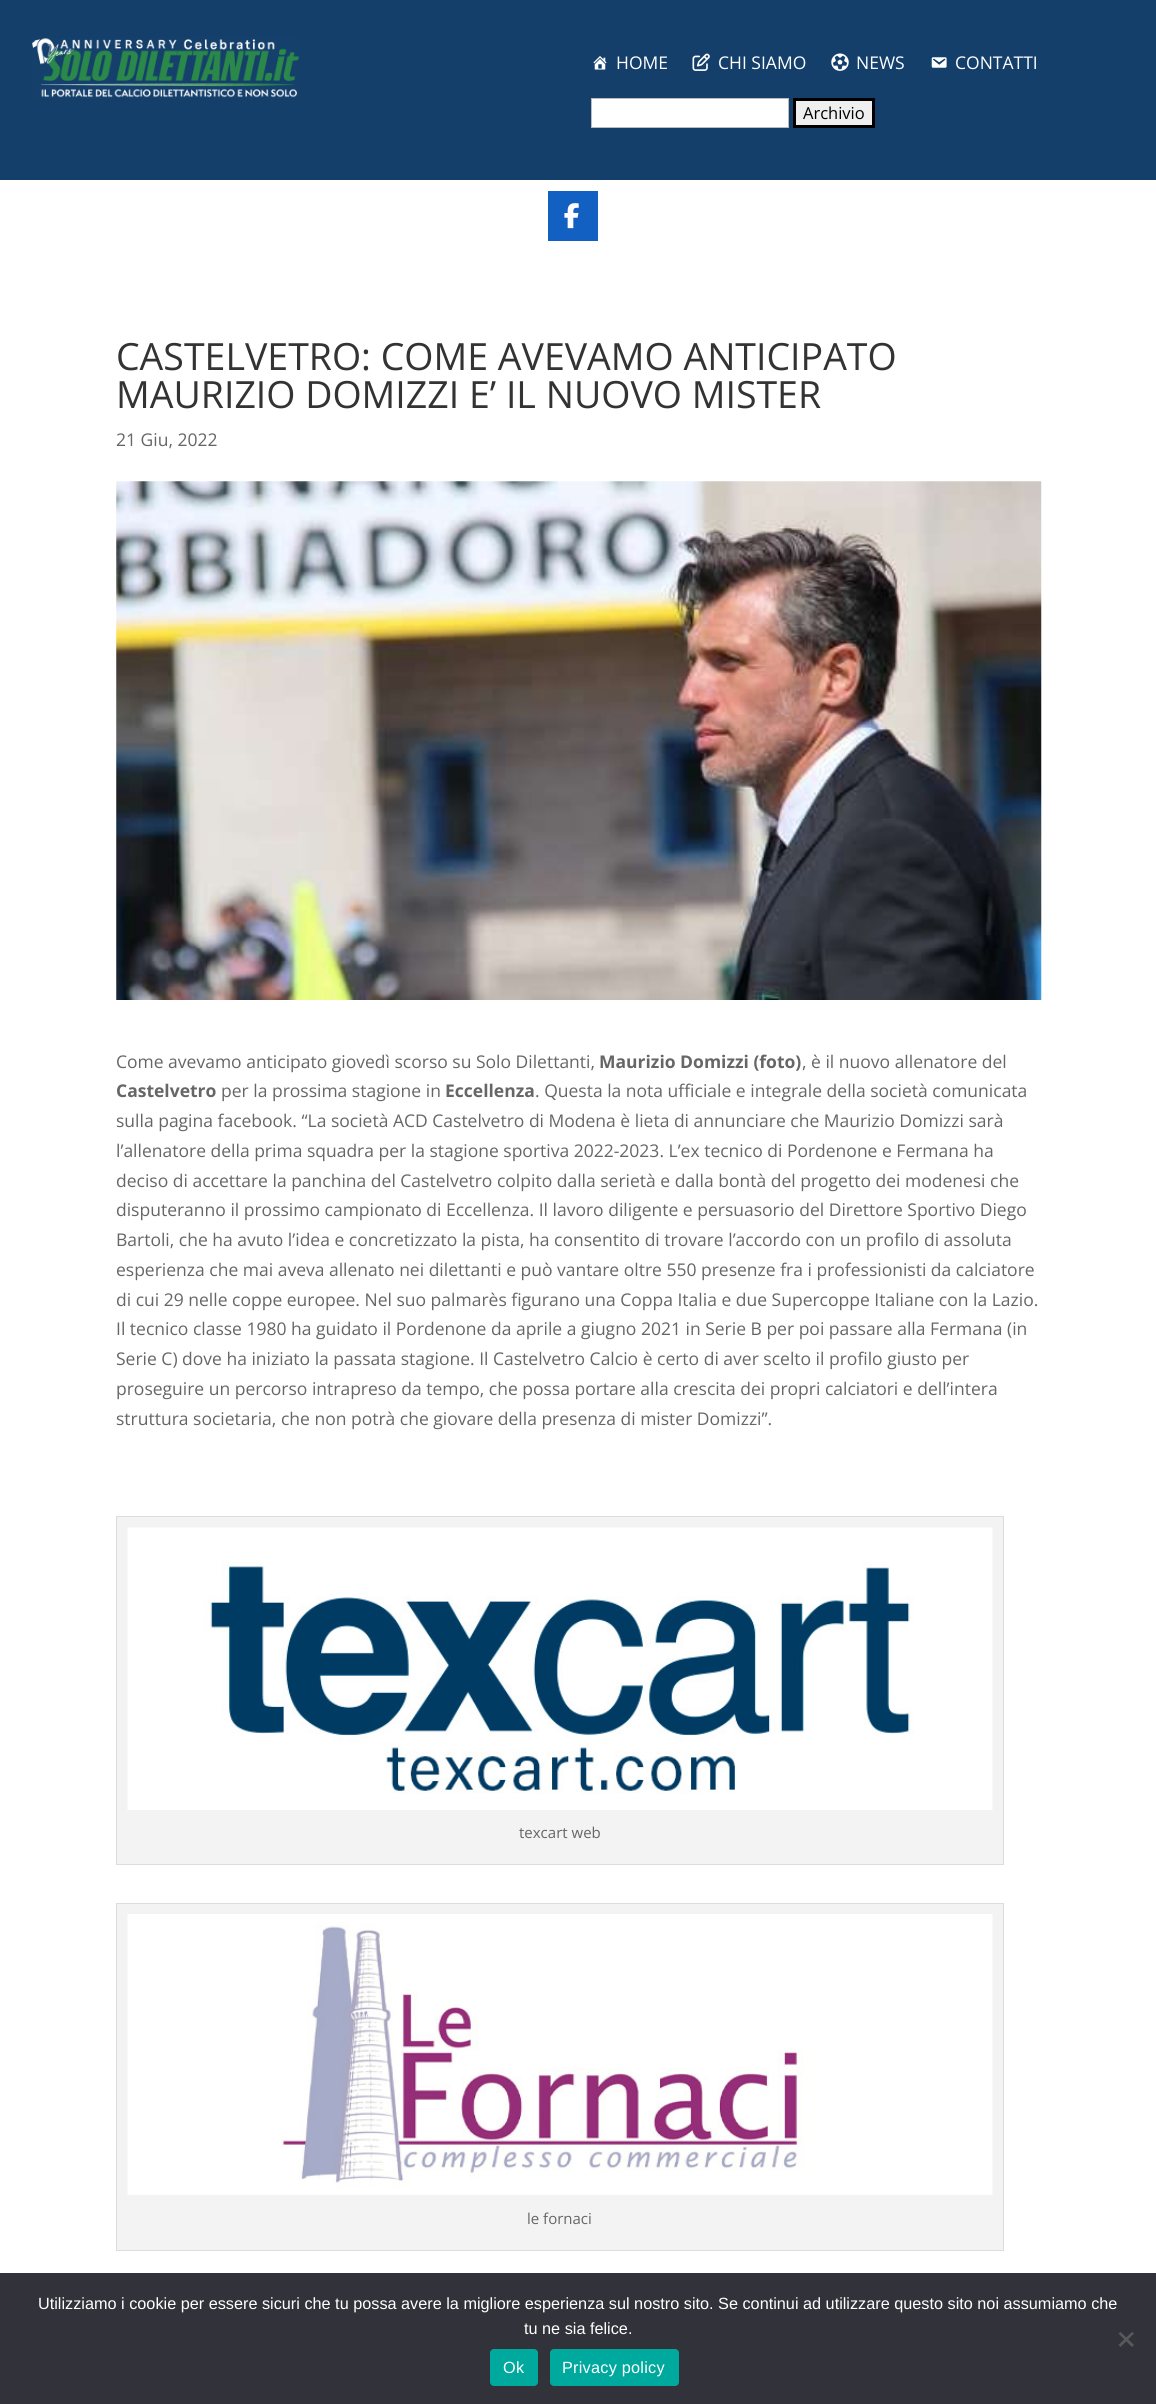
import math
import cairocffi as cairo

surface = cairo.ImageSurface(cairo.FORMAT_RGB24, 1156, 2404)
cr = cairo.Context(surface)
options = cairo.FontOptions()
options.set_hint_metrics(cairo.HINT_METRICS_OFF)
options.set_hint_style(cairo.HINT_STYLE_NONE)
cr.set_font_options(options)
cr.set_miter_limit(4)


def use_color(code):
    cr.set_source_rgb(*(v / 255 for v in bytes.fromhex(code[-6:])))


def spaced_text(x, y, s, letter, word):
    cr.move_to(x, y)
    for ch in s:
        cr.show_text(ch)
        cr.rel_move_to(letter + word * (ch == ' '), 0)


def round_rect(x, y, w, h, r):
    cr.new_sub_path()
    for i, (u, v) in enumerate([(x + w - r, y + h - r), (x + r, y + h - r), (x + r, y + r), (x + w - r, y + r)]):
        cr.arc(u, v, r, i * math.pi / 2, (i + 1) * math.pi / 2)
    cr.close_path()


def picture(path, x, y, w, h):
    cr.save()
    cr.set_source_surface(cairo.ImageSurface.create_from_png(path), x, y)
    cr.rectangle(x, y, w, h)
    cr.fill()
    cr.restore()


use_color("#ffffff")
cr.paint()
use_color("#143f6b")
cr.rectangle(0, 0, 1156, 180)
cr.fill()
picture("img1.png", 32, 38, 268, 60)
picture("img2.png", 593, 56, 14, 14)
cr.select_font_face("Open Sans")
cr.set_font_size(17.5)
use_color("#ffffff")
cr.move_to(616, 69)
cr.show_text("HOME")
picture("img3.png", 692, 53, 18, 18)
cr.move_to(718, 69)
cr.show_text("CHI SIAMO")
picture("img4.png", 831, 53, 18, 18)
cr.move_to(856, 69)
cr.show_text("NEWS")
picture("img5.png", 931, 57, 16, 11)
cr.move_to(955, 69)
cr.show_text("CONTATTI")
cr.rectangle(591.5, 98.5, 197, 29)
cr.fill_preserve()
use_color("#bbbbbb")
cr.set_line_width(1)
cr.stroke()
use_color("#efefef")
cr.rectangle(794.5, 99.5, 79, 27)
cr.fill_preserve()
use_color("#000000")
cr.set_line_width(3)
cr.stroke()
cr.set_font_size(16.5)
cr.move_to(803, 119)
cr.show_text("Archivio")
use_color("#1260c2")
cr.rectangle(548, 191, 50, 50)
cr.fill()
picture("img6.png", 564, 203, 15, 26)
cr.set_font_size(37.5)
use_color("#333333")
cr.move_to(116, 370)
cr.show_text("CASTELVETRO: COME AVEVAMO ANTICIPATO")
cr.move_to(116, 408)
cr.show_text("MAURIZIO DOMIZZI E’ IL NUOVO MISTER")
cr.set_font_size(17.5)
use_color("#666666")
cr.move_to(116, 446)
cr.show_text("21 Giu, 2022")
picture("img7.png", 116, 481, 926, 519)
cr.move_to(116, 1068)
cr.show_text("Come avevamo anticipato giovedì scorso su Solo Dilettanti,")
cr.select_font_face("Open Sans", cairo.FONT_SLANT_NORMAL, cairo.FONT_WEIGHT_BOLD)
cr.move_to(599, 1068)
cr.show_text("Maurizio Domizzi (foto)")
cr.select_font_face("Open Sans")
cr.move_to(802, 1068)
cr.show_text(", è il nuovo allenatore del")
cr.select_font_face("Open Sans", cairo.FONT_SLANT_NORMAL, cairo.FONT_WEIGHT_BOLD)
cr.move_to(116, 1097)
cr.show_text("Castelvetro")
cr.select_font_face("Open Sans")
cr.move_to(221, 1097)
cr.show_text("per la prossima stagione in")
cr.select_font_face("Open Sans", cairo.FONT_SLANT_NORMAL, cairo.FONT_WEIGHT_BOLD)
cr.move_to(445, 1097)
cr.show_text("Eccellenza")
cr.select_font_face("Open Sans")
cr.move_to(535, 1097)
cr.show_text(". Questa la nota ufficiale e integrale della società comunicata")
cr.move_to(116, 1127)
cr.show_text("sulla pagina facebook. “La società ACD Castelvetro di Modena è lieta di annunciare che Maurizio Domizzi sarà")
cr.move_to(116, 1157)
cr.show_text("l’allenatore della prima squadra per la stagione sportiva 2022-2023. L’ex tecnico di Pordenone e Fermana ha")
cr.move_to(116, 1187)
cr.show_text("deciso di accettare la panchina del Castelvetro colpito dalla serietà e dalla bontà del progetto dei modenesi che")
cr.move_to(116, 1216)
cr.show_text("disputeranno il prossimo campionato di Eccellenza. Il lavoro diligente e persuasorio del Direttore Sportivo Diego")
cr.move_to(116, 1246)
cr.show_text("Bartoli, che ha avuto l’idea e concretizzato la pista, ha consentito di trovare l’accordo con un profilo di assoluta")
cr.move_to(116, 1276)
cr.show_text("esperienza che mai aveva allenato nei dilettanti e può vantare oltre 550 presenze fra i professionisti da calciatore")
cr.move_to(116, 1306)
cr.show_text("di cui 29 nelle coppe europee. Nel suo palmarès figurano una Coppa Italia e due Supercoppe Italiane con la Lazio.")
cr.move_to(116, 1335)
cr.show_text("Il tecnico classe 1980 ha guidato il Pordenone da aprile a giugno 2021 in Serie B per poi passare alla Fermana (in")
cr.move_to(116, 1365)
cr.show_text("Serie C) dove ha iniziato la passata stagione. Il Castelvetro Calcio è certo di aver scelto il profilo giusto per")
cr.move_to(116, 1395)
cr.show_text("proseguire un percorso intrapreso da tempo, che possa portare alla crescita dei propri calciatori e dell’intera")
cr.move_to(116, 1425)
cr.show_text("struttura societaria, che non potrà che giovare della presenza di mister Domizzi”.")
use_color("#f3f3f3")
cr.rectangle(116.5, 1516.5, 887, 348)
cr.fill_preserve()
use_color("#dddddd")
cr.set_line_width(1)
cr.stroke()
picture("img8.png", 127, 1527, 866, 283)
cr.set_font_size(15)
use_color("#666666")
cr.move_to(519, 1838)
cr.show_text("texcart web")
use_color("#f3f3f3")
cr.rectangle(116.5, 1903.5, 887, 347)
cr.fill_preserve()
use_color("#dddddd")
cr.stroke()
picture("img9.png", 127, 1914, 866, 281)
use_color("#666666")
cr.move_to(527, 2224)
cr.show_text("le fornaci")
use_color("#32323a")
cr.rectangle(0, 2273, 1156, 131)
cr.fill()
cr.select_font_face("Liberation Sans")
cr.set_font_size(16.25)
use_color("#ffffff")
cr.move_to(38, 2309)
cr.show_text("Utilizziamo i cookie per essere sicuri che tu possa avere la migliore esperienza sul nostro sito. Se continui ad utilizzare questo sito noi assumiamo che")
cr.move_to(524, 2334)
cr.show_text("tu ne sia felice.")
use_color("#59595d")
cr.new_path()
cr.move_to(1132, 2332)
cr.line_to(1134, 2333.5)
cr.line_to(1120.5, 2347)
cr.line_to(1118.5, 2345)
cr.close_path()
cr.fill()
cr.new_path()
cr.move_to(1118.5, 2333.5)
cr.line_to(1120.5, 2332)
cr.line_to(1134, 2345)
cr.line_to(1132, 2347)
cr.close_path()
cr.fill()
use_color("#00a99d")
round_rect(490, 2349, 48, 37, 4)
cr.fill()
use_color("#ffffff")
spaced_text(503, 2373, "Ok", 0.25, 0)
use_color("#00a99d")
round_rect(550, 2349, 129, 37, 4)
cr.fill()
use_color("#ffffff")
spaced_text(562, 2373, "Privacy policy", 0.25, 0)
surface.write_to_png("result.png")
